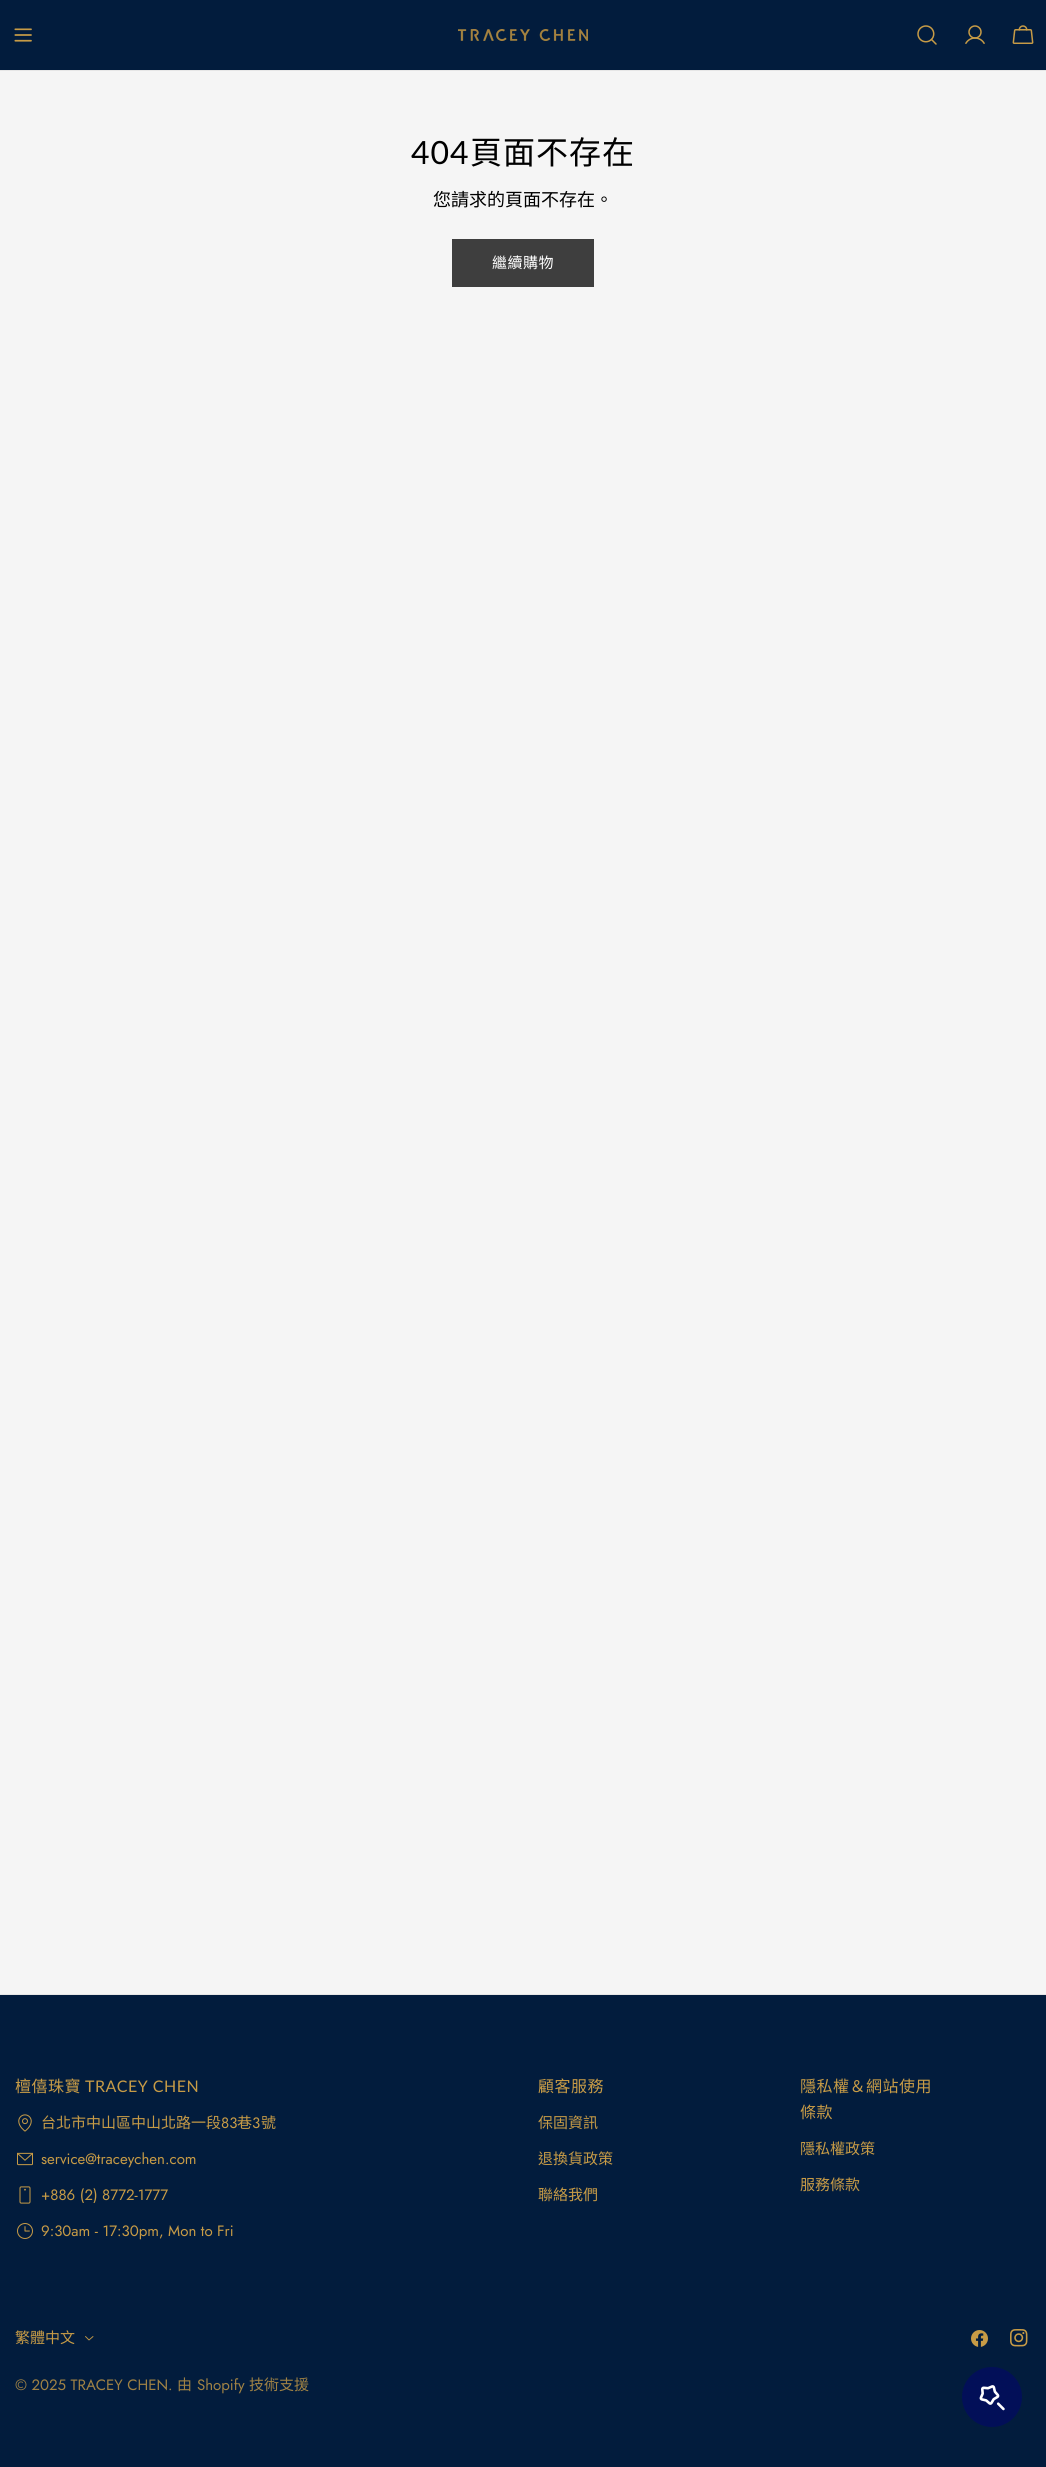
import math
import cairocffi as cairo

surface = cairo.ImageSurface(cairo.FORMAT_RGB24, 1046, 2467)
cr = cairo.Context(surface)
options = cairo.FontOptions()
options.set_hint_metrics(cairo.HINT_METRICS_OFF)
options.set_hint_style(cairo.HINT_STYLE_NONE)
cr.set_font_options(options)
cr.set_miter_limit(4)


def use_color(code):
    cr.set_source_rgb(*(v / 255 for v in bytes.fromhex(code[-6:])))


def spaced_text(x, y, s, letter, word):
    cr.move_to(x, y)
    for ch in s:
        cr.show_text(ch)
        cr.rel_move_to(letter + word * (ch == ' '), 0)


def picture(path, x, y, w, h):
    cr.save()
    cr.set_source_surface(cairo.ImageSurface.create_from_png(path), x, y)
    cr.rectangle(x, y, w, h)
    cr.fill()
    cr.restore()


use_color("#f5f5f5")
cr.paint()
use_color("#e6e6e6")
cr.rectangle(0, 70, 1046, 1)
cr.fill()
use_color("#021c3d")
cr.rectangle(0, 0, 1046, 70)
cr.fill()
picture("img1.png", 14, 28, 18, 14)
picture("img2.png", 458, 29, 130, 12)
picture("img3.png", 917, 25, 20, 20)
picture("img4.png", 965, 25, 20, 19)
picture("img5.png", 1012, 25, 22, 19)
cr.select_font_face("Lato")
cr.set_font_size(32)
use_color("#000000")
spaced_text(411, 164, "404", 1, 0)
cr.select_font_face("Noto Sans CJK TC")
spaced_text(470, 164, "頁面不存在", 1, 0)
cr.set_font_size(18)
cr.move_to(433, 206)
cr.show_text("您請求的頁面不存在。")
use_color("#3e3e3e")
cr.rectangle(452, 239, 142, 48)
cr.fill()
cr.set_font_size(15)
use_color("#ffffff")
spaced_text(492, 268, "繼續購物", 0.5, 0)
use_color("#021c3d")
cr.rectangle(0, 1995, 1046, 472)
cr.fill()
use_color("#e6e6e6")
cr.rectangle(0, 1994, 1046, 1)
cr.fill()
cr.set_font_size(16)
use_color("#c79b46")
spaced_text(15, 2092, "檀僖珠寶", 0.5, 0)
cr.select_font_face("Lato")
spaced_text(85, 2092, "TRACEY CHEN", 0.5, 0)
picture("img6.png", 18, 2114, 14, 18)
cr.select_font_face("Noto Sans CJK TC")
cr.set_font_size(15)
cr.move_to(41, 2128)
cr.show_text("台北市中山區中山北路一段")
cr.select_font_face("Jost")
cr.move_to(221, 2128)
cr.show_text("83")
cr.select_font_face("Noto Sans CJK TC")
cr.move_to(237, 2128)
cr.show_text("巷")
cr.select_font_face("Jost")
cr.move_to(252, 2128)
cr.show_text("3")
cr.select_font_face("Noto Sans CJK TC")
cr.move_to(261, 2128)
cr.show_text("號")
picture("img7.png", 17, 2152, 16, 14)
cr.select_font_face("Jost")
cr.move_to(41, 2164)
cr.show_text("service@traceychen.com")
picture("img8.png", 19, 2186, 12, 18)
cr.move_to(41, 2200)
cr.show_text("+886 (2) 8772-1777")
picture("img9.png", 17, 2223, 16, 16)
cr.move_to(41, 2236)
cr.show_text("9:30am - 17:30pm, Mon to Fri")
cr.select_font_face("Noto Sans CJK TC")
cr.set_font_size(16)
spaced_text(538, 2092, "顧客服務", 0.5, 0)
cr.set_font_size(15)
cr.move_to(538, 2128)
cr.show_text("保固資訊")
cr.move_to(538, 2164)
cr.show_text("退換貨政策")
cr.move_to(538, 2200)
cr.show_text("聯絡我們")
cr.set_font_size(16)
spaced_text(800, 2092, "隱私權＆網站使用", 0.5, 0)
spaced_text(800, 2118, "條款", 0.5, 0)
cr.set_font_size(15)
cr.move_to(800, 2154)
cr.show_text("隱私權政策")
cr.move_to(800, 2190)
cr.show_text("服務條款")
cr.move_to(15, 2343)
cr.show_text("繁體中文")
cr.new_path()
cr.move_to(93, 2336.5)
cr.line_to(89, 2340)
cr.line_to(85.5, 2336.5)
cr.set_line_width(0.9)
cr.set_line_cap(cairo.LINE_CAP_ROUND)
cr.set_line_join(cairo.LINE_JOIN_ROUND)
cr.stroke()
picture("img10.png", 971, 2330, 17, 17)
picture("img11.png", 1010, 2329, 18, 18)
cr.select_font_face("Jost")
use_color("#a08244")
cr.move_to(15, 2390)
cr.show_text("© 2025 TRACEY CHEN.")
cr.select_font_face("Noto Sans CJK TC")
cr.move_to(177, 2390)
cr.show_text("由")
cr.select_font_face("Jost")
cr.move_to(197, 2390)
cr.show_text("Shopify")
cr.select_font_face("Noto Sans CJK TC")
cr.move_to(249, 2390)
cr.show_text("技術支援")
use_color("#020f58")
cr.new_path()
cr.arc(992, 2397, 30, 0, 2 * math.pi)
cr.fill()
picture("img12.png", 979, 2385, 26, 26)
surface.write_to_png("result.png")
